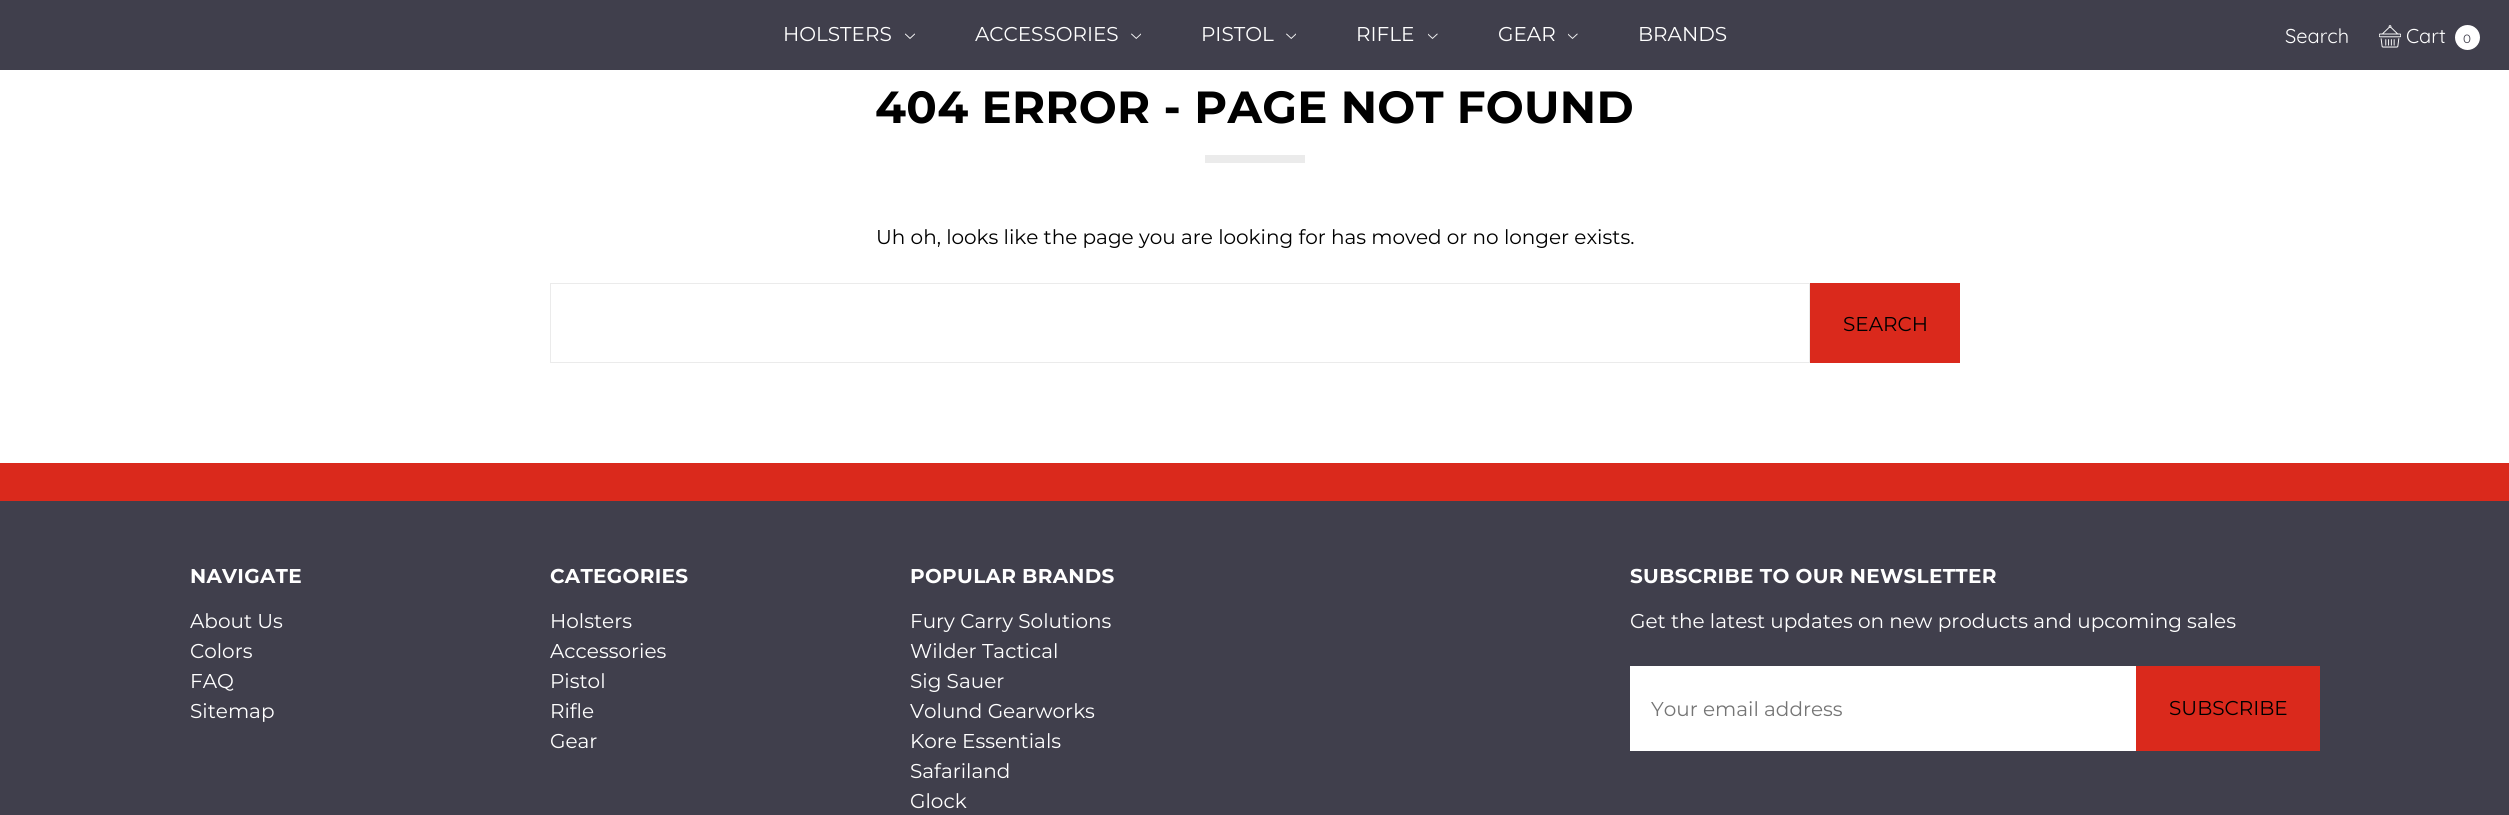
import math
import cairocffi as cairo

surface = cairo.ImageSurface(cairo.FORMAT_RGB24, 2509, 815)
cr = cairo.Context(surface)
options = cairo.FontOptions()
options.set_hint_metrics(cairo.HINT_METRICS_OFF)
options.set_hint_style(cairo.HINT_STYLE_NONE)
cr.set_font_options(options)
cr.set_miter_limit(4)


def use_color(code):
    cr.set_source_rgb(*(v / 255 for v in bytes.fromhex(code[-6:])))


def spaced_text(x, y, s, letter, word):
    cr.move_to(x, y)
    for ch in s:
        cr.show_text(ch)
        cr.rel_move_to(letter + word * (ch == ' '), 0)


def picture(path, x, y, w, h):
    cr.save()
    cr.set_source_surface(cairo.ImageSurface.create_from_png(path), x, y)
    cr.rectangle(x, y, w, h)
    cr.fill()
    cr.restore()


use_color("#ffffff")
cr.paint()
use_color("#403f4c")
cr.rectangle(0, 0, 2509, 70)
cr.fill()
cr.select_font_face("Montserrat")
cr.set_font_size(20)
use_color("#ffffff")
cr.move_to(783, 41)
cr.show_text("HOLSTERS")
picture("img1.png", 905, 33, 10, 6)
cr.move_to(975, 41)
cr.show_text("ACCESSORIES")
picture("img2.png", 1131, 33, 10, 6)
cr.move_to(1201, 41)
cr.show_text("PISTOL")
picture("img2.png", 1286, 33, 10, 6)
cr.move_to(1356, 41)
cr.show_text("RIFLE")
picture("img3.png", 1428, 33, 10, 6)
cr.move_to(1498, 41)
cr.show_text("GEAR")
picture("img3.png", 1568, 33, 10, 6)
cr.move_to(1638, 41)
cr.show_text("BRANDS")
cr.select_font_face("Quicksand Light")
cr.move_to(2285, 43)
cr.show_text("Search")
picture("img4.png", 2379, 25, 22, 23)
cr.move_to(2406, 43)
cr.show_text("Cart")
cr.new_path()
cr.arc(2467.5, 37.5, 12.5, 0, 2 * math.pi)
cr.fill()
cr.select_font_face("Montserrat")
cr.set_font_size(12)
use_color("#403f4c")
cr.move_to(2463, 43)
cr.show_text("0")
cr.select_font_face("Montserrat", cairo.FONT_SLANT_NORMAL, cairo.FONT_WEIGHT_BOLD)
cr.set_font_size(45)
use_color("#000000")
spaced_text(875, 123, "404 ERROR - PAGE NOT FOUND", 0.3, 0)
use_color("#ebebeb")
cr.rectangle(1205, 155, 100, 8)
cr.fill()
cr.select_font_face("Montserrat")
cr.set_font_size(20)
use_color("#000000")
cr.move_to(876, 244)
cr.show_text("Uh oh, looks like the page you are looking for has moved or no longer exists.")
cr.rectangle(550.5, 283.5, 1259, 79)
use_color("#ebebeb")
cr.set_line_width(1)
cr.stroke()
use_color("#da291c")
cr.rectangle(1810, 283, 150, 80)
cr.fill()
use_color("#000000")
cr.move_to(1843, 331)
cr.show_text("SEARCH")
use_color("#da291c")
cr.rectangle(0, 463, 2509, 38)
cr.fill()
use_color("#403f4c")
cr.rectangle(0, 501, 2509, 314)
cr.fill()
cr.select_font_face("Montserrat", cairo.FONT_SLANT_NORMAL, cairo.FONT_WEIGHT_BOLD)
use_color("#ffffff")
spaced_text(190, 583, "NAVIGATE", 0.3, 0)
cr.select_font_face("Montserrat")
cr.move_to(190, 628)
cr.show_text("About Us")
cr.move_to(190, 658)
cr.show_text("Colors")
cr.move_to(190, 688)
cr.show_text("FAQ")
cr.move_to(190, 718)
cr.show_text("Sitemap")
cr.select_font_face("Montserrat", cairo.FONT_SLANT_NORMAL, cairo.FONT_WEIGHT_BOLD)
spaced_text(550, 583, "CATEGORIES", 0.3, 0)
cr.select_font_face("Montserrat")
cr.move_to(550, 628)
cr.show_text("Holsters")
cr.move_to(550, 658)
cr.show_text("Accessories")
cr.move_to(550, 688)
cr.show_text("Pistol")
cr.move_to(550, 718)
cr.show_text("Rifle")
cr.move_to(550, 748)
cr.show_text("Gear")
cr.select_font_face("Montserrat", cairo.FONT_SLANT_NORMAL, cairo.FONT_WEIGHT_BOLD)
spaced_text(910, 583, "POPULAR BRANDS", 0.3, 0)
cr.select_font_face("Montserrat")
cr.move_to(910, 628)
cr.show_text("Fury Carry Solutions")
cr.move_to(910, 658)
cr.show_text("Wilder Tactical")
cr.move_to(910, 688)
cr.show_text("Sig Sauer")
cr.move_to(910, 718)
cr.show_text("Volund Gearworks")
cr.move_to(910, 748)
cr.show_text("Kore Essentials")
cr.move_to(910, 778)
cr.show_text("Safariland")
cr.move_to(910, 808)
cr.show_text("Glock")
cr.select_font_face("Montserrat", cairo.FONT_SLANT_NORMAL, cairo.FONT_WEIGHT_BOLD)
spaced_text(1630, 583, "SUBSCRIBE TO OUR NEWSLETTER", 0.3, 0)
cr.select_font_face("Montserrat")
cr.move_to(1630, 628)
cr.show_text("Get the latest updates on new products and upcoming sales")
cr.rectangle(1630, 666, 506, 85)
cr.fill()
use_color("#757575")
cr.move_to(1651, 716)
cr.show_text("Your email address")
use_color("#da291c")
cr.rectangle(2136, 666, 184, 85)
cr.fill()
use_color("#000000")
cr.move_to(2169, 715)
cr.show_text("SUBSCRIBE")
surface.write_to_png("result.png")
